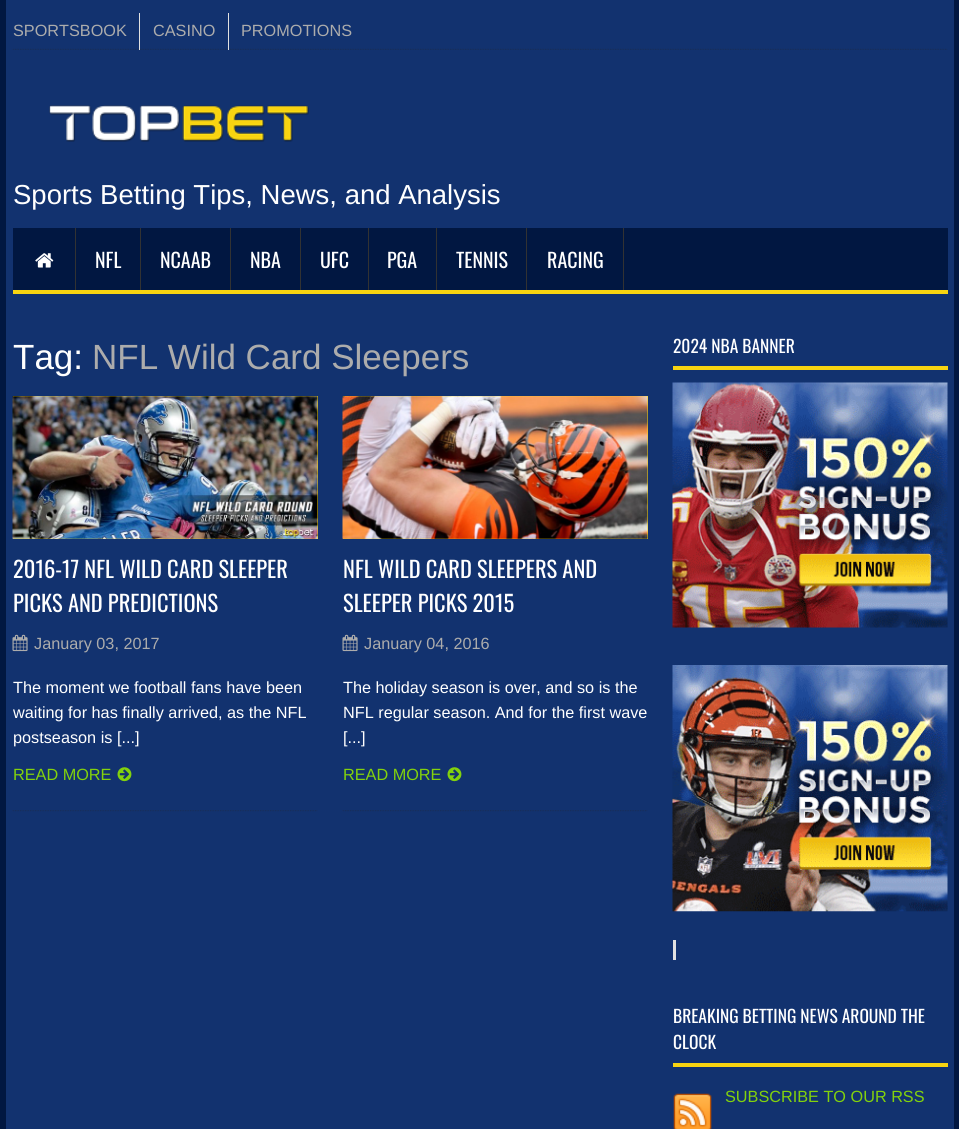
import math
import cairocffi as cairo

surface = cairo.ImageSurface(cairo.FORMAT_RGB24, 959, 1129)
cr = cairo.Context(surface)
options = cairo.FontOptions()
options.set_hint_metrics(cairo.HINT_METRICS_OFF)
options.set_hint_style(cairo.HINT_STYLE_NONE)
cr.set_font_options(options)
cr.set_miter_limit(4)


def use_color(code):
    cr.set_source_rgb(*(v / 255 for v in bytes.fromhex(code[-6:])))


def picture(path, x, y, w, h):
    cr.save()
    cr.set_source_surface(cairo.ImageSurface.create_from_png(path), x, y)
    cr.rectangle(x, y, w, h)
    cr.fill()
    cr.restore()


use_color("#12326f")
cr.paint()
use_color("#011741")
cr.rectangle(954, 0, 5, 1129)
cr.fill()
cr.rectangle(0, 0, 6, 1129)
cr.fill()
picture("img1.png", 12, 48, 936, 2)
use_color("#e1e1e1")
cr.rectangle(139, 13, 1, 37)
cr.fill()
cr.select_font_face("Liberation Sans")
cr.set_font_size(16.25)
use_color("#acacac")
cr.move_to(13, 36)
cr.show_text("SPORTSBOOK")
use_color("#e1e1e1")
cr.rectangle(228, 13, 1, 37)
cr.fill()
use_color("#acacac")
cr.move_to(153, 36)
cr.show_text("CASINO")
cr.move_to(241, 36)
cr.show_text("PROMOTIONS")
picture("img2.png", 49, 105, 260, 37)
cr.set_font_size(27.5)
use_color("#ffffff")
cr.move_to(13, 204)
cr.show_text("Sports Betting Tips, News, and Analysis")
use_color("#011741")
cr.rectangle(13, 228, 935, 62)
cr.fill()
use_color("#f8d411")
cr.rectangle(13, 290, 935, 4)
cr.fill()
use_color("#323232")
cr.rectangle(75, 228, 1, 62)
cr.fill()
picture("img3.png", 35, 253, 19, 15)
cr.rectangle(140, 228, 1, 62)
cr.fill()
cr.select_font_face("Oswald")
cr.set_font_size(20)
use_color("#ffffff")
cr.move_to(95, 268)
cr.show_text("NFL")
use_color("#323232")
cr.rectangle(230, 228, 1, 62)
cr.fill()
use_color("#ffffff")
cr.move_to(160, 268)
cr.show_text("NCAAB")
use_color("#323232")
cr.rectangle(300, 228, 1, 62)
cr.fill()
use_color("#ffffff")
cr.move_to(250, 268)
cr.show_text("NBA")
use_color("#323232")
cr.rectangle(368, 228, 1, 62)
cr.fill()
use_color("#ffffff")
cr.move_to(320, 268)
cr.show_text("UFC")
use_color("#323232")
cr.rectangle(436, 228, 1, 62)
cr.fill()
use_color("#ffffff")
cr.move_to(387, 268)
cr.show_text("PGA")
use_color("#323232")
cr.rectangle(526, 228, 1, 62)
cr.fill()
use_color("#ffffff")
cr.move_to(456, 268)
cr.show_text("TENNIS")
use_color("#323232")
cr.rectangle(623, 228, 1, 62)
cr.fill()
use_color("#ffffff")
cr.move_to(547, 268)
cr.show_text("RACING")
cr.select_font_face("Liberation Sans")
cr.set_font_size(35)
cr.move_to(13, 369)
cr.show_text("Tag:")
use_color("#acacac")
cr.move_to(92, 369)
cr.show_text("NFL Wild Card Sleepers")
picture("img4.png", 12, 810, 306, 2)
use_color("#f8d411")
cr.rectangle(13, 396, 305, 143)
cr.fill()
picture("img5.png", 12, 396, 306, 143)
cr.select_font_face("Oswald")
cr.set_font_size(22.5)
use_color("#ffffff")
cr.move_to(13, 578)
cr.show_text("2016-17 NFL WILD CARD SLEEPER")
cr.move_to(13, 612)
cr.show_text("PICKS AND PREDICTIONS")
picture("img6.png", 12, 634, 16, 18)
cr.select_font_face("Liberation Sans")
cr.set_font_size(16.25)
use_color("#acacac")
cr.move_to(34, 649)
cr.show_text("January 03, 2017")
use_color("#ffffff")
cr.move_to(13, 693)
cr.show_text("The moment we football fans have been")
cr.move_to(13, 718)
cr.show_text("waiting for has finally arrived, as the NFL")
cr.move_to(13, 743)
cr.show_text("postseason is [...]")
use_color("#83d20c")
cr.move_to(13, 780)
cr.show_text("READ MORE")
picture("img7.png", 117, 767, 15, 15)
picture("img8.png", 342, 810, 306, 2)
use_color("#f8d411")
cr.rectangle(343, 396, 305, 143)
cr.fill()
picture("img9.png", 342, 396, 306, 143)
cr.select_font_face("Oswald")
cr.set_font_size(22.5)
use_color("#ffffff")
cr.move_to(343, 578)
cr.show_text("NFL WILD CARD SLEEPERS AND")
cr.move_to(343, 612)
cr.show_text("SLEEPER PICKS 2015")
picture("img6.png", 342, 634, 16, 18)
cr.select_font_face("Liberation Sans")
cr.set_font_size(16.25)
use_color("#acacac")
cr.move_to(364, 649)
cr.show_text("January 04, 2016")
use_color("#ffffff")
cr.move_to(343, 693)
cr.show_text("The holiday season is over, and so is the")
cr.move_to(343, 718)
cr.show_text("NFL regular season. And for the first wave")
cr.move_to(343, 743)
cr.show_text("[...]")
use_color("#83d20c")
cr.move_to(343, 780)
cr.show_text("READ MORE")
picture("img7.png", 447, 767, 15, 15)
use_color("#f8d411")
cr.rectangle(673, 366, 275, 4)
cr.fill()
cr.select_font_face("Oswald")
cr.set_font_size(17.5)
use_color("#ffffff")
cr.move_to(673, 353)
cr.show_text("2024 NBA BANNER")
picture("img10.png", 672, 382, 276, 246)
picture("img11.png", 672, 665, 276, 247)
use_color("#e1e1e1")
cr.rectangle(673, 940, 3, 20)
cr.fill()
use_color("#f8d411")
cr.rectangle(673, 1063, 275, 4)
cr.fill()
use_color("#ffffff")
cr.move_to(673, 1023)
cr.show_text("BREAKING BETTING NEWS AROUND THE")
cr.move_to(673, 1049)
cr.show_text("CLOCK")
picture("img12.png", 673, 1093, 39, 36)
cr.select_font_face("Liberation Sans")
cr.set_font_size(16.25)
use_color("#83d20c")
cr.move_to(725, 1102)
cr.show_text("SUBSCRIBE TO OUR RSS")
surface.write_to_png("result.png")
